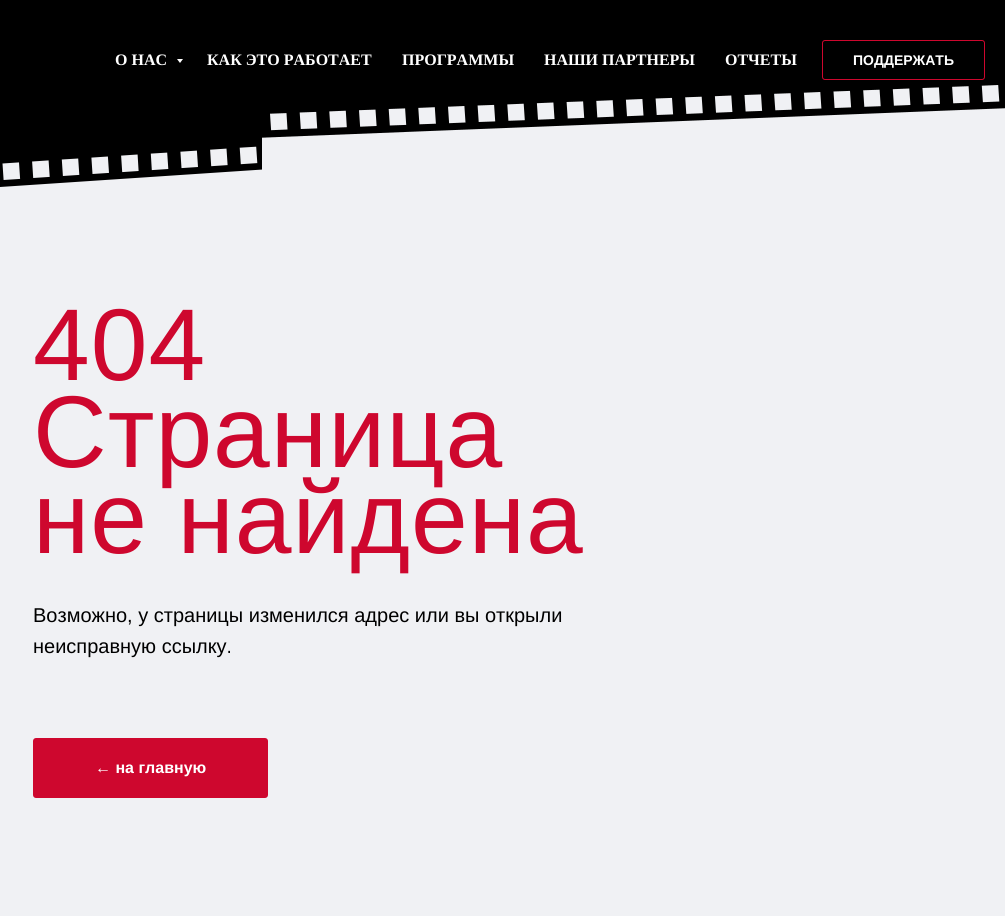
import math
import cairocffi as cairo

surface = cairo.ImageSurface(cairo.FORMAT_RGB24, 1005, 916)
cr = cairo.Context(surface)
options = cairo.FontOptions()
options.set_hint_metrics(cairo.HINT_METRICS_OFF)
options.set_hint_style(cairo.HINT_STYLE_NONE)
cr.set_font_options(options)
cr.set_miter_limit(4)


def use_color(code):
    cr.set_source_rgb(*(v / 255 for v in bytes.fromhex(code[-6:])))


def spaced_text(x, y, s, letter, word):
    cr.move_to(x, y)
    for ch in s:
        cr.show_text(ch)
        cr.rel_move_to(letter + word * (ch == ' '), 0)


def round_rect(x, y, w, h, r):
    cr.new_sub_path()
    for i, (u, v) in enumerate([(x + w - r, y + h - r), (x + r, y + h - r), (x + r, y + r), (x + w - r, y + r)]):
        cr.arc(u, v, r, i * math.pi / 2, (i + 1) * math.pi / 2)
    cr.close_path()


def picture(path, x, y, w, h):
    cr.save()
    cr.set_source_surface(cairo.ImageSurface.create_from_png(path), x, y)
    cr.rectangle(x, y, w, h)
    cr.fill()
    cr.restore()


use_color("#000000")
cr.paint()
cr.select_font_face("Liberation Serif", cairo.FONT_SLANT_NORMAL, cairo.FONT_WEIGHT_BOLD)
cr.set_font_size(16)
use_color("#ffffff")
cr.move_to(115, 65)
cr.show_text("О НАС")
cr.new_path()
cr.move_to(177, 59)
cr.line_to(183, 59)
cr.line_to(180, 63)
cr.close_path()
cr.fill()
cr.move_to(207, 65)
cr.show_text("КАК ЭТО РАБОТАЕТ")
cr.move_to(402, 65)
cr.show_text("ПРОГРАММЫ")
cr.move_to(544, 65)
cr.show_text("НАШИ ПАРТНЕРЫ")
cr.move_to(725, 65)
cr.show_text("ОТЧЕТЫ")
round_rect(822.5, 40.5, 162, 39, 2.5)
use_color("#ce072e")
cr.set_line_width(1)
cr.stroke()
cr.select_font_face("Liberation Sans", cairo.FONT_SLANT_NORMAL, cairo.FONT_WEIGHT_BOLD)
cr.set_font_size(14)
use_color("#ffffff")
cr.move_to(853, 65)
cr.show_text("ПОДДЕРЖАТЬ")
use_color("#f0f1f4")
cr.rectangle(0, 85, 1005, 831)
cr.fill()
picture("img1.png", 0, 80, 262, 107)
picture("img2.png", 262, 80, 743, 58)
cr.select_font_face("Liberation Sans")
cr.set_font_size(102)
use_color("#ce072e")
spaced_text(33, 380, "404", 1, 0)
spaced_text(33, 467, "Страница", 1, 0)
spaced_text(33, 553, "не найдена", 1, 0)
cr.set_font_size(20)
use_color("#000000")
cr.move_to(33, 622)
cr.show_text("Возможно, у страницы изменился адрес или вы открыли")
cr.move_to(33, 653)
cr.show_text("неисправную ссылку.")
use_color("#ce072e")
round_rect(33, 738, 235, 60, 3)
cr.fill()
cr.select_font_face("Liberation Sans", cairo.FONT_SLANT_NORMAL, cairo.FONT_WEIGHT_BOLD)
cr.set_font_size(16)
use_color("#ffffff")
cr.move_to(95, 773)
cr.show_text("← на главную")
surface.write_to_png("result.png")
